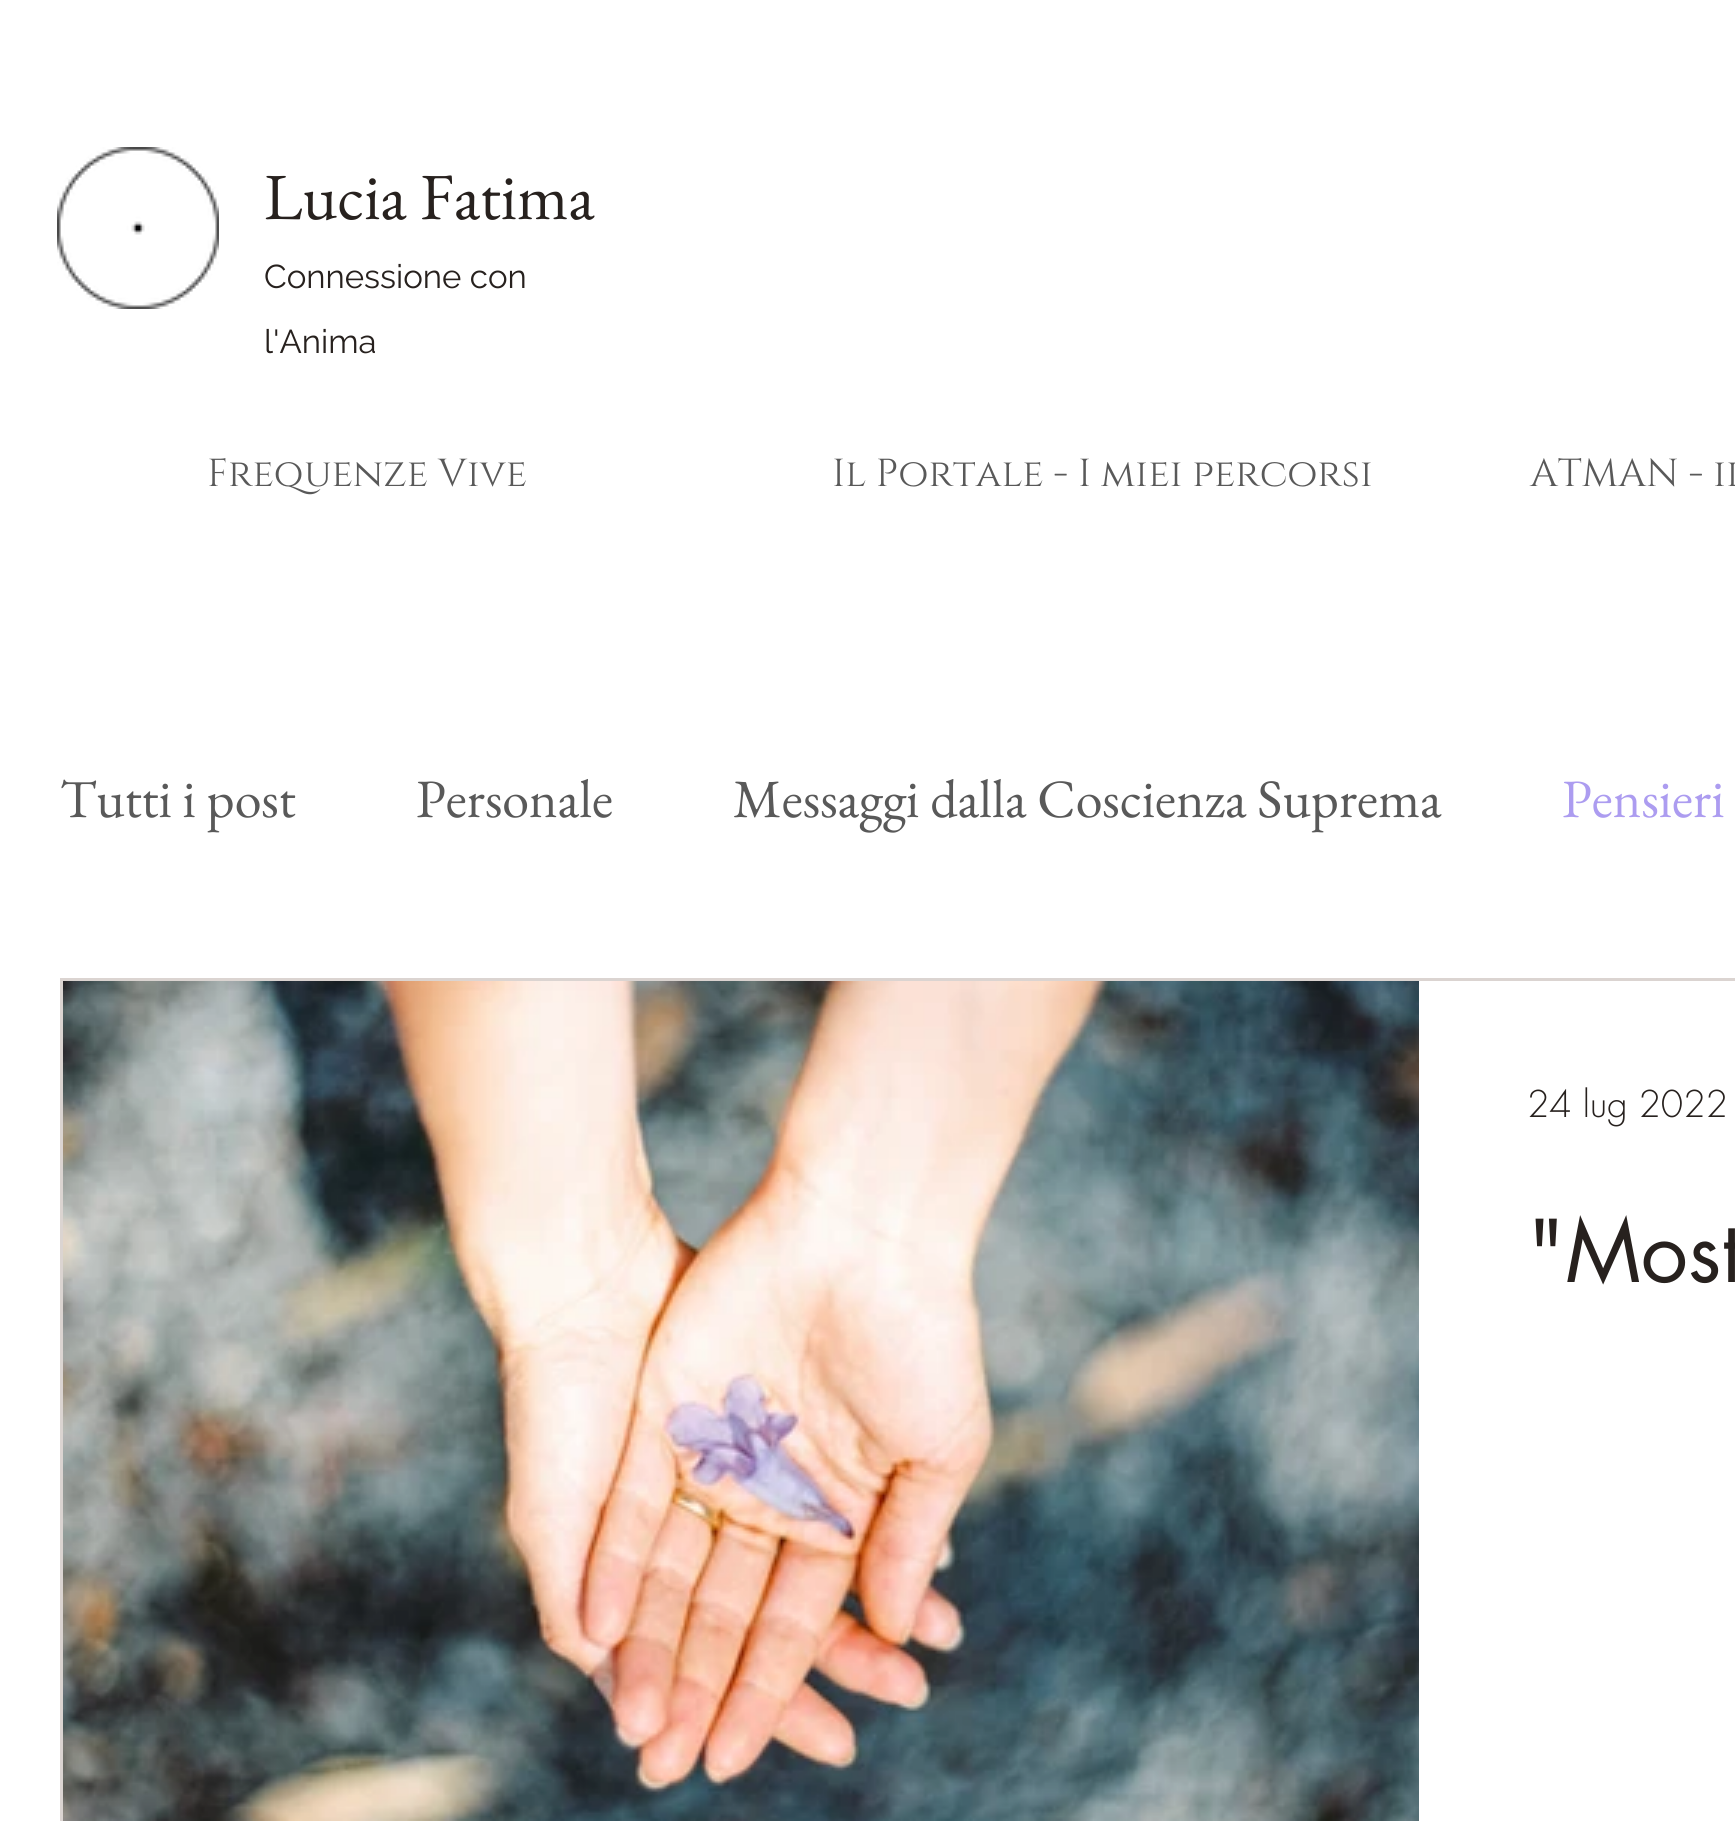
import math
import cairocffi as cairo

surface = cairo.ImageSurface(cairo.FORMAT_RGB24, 1735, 1821)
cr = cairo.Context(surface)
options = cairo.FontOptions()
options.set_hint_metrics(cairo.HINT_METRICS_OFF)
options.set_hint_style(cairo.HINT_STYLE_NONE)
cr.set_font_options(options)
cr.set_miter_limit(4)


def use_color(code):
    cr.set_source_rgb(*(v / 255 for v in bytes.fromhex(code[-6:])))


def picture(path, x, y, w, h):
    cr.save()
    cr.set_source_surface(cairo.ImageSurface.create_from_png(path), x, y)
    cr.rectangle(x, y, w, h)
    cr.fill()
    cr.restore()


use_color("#ffffff")
cr.paint()
picture("img1.png", 57, 147, 162, 162)
cr.select_font_face("EB Garamond")
cr.set_font_size(66)
use_color("#27211e")
cr.move_to(264, 219)
cr.show_text("Lucia Fatima")
cr.select_font_face("Raleway")
cr.set_font_size(33)
cr.move_to(264, 288)
cr.show_text("Connessione con")
cr.move_to(264, 353)
cr.show_text("l'Anima")
cr.select_font_face("Cinzel")
cr.set_font_size(39)
use_color("#595959")
cr.move_to(207, 486)
cr.show_text("Frequenze Vive")
cr.move_to(832, 486)
cr.show_text("Il Portale - I miei percorsi")
cr.move_to(1530, 486)
cr.show_text("ATMAN - il")
cr.select_font_face("EB Garamond")
cr.set_font_size(54)
cr.move_to(60, 817)
cr.show_text("Tutti i post")
cr.move_to(416, 817)
cr.show_text("Personale")
cr.move_to(733, 817)
cr.show_text("Messaggi dalla Coscienza Suprema")
use_color("#ac9cf0")
cr.move_to(1562, 817)
cr.show_text("Pensieri")
cr.rectangle(61.5, 979.5, 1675, 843)
use_color("#dbd4d1")
cr.set_line_width(3)
cr.stroke()
picture("img2.png", 63, 981, 1356, 840)
cr.select_font_face("futura Light")
cr.set_font_size(36)
use_color("#27211e")
cr.move_to(1527, 1117)
cr.show_text("24 lug 2022")
cr.select_font_face("futura")
cr.set_font_size(84)
cr.move_to(1527, 1282)
cr.show_text("\"Most")
surface.write_to_png("result.png")
